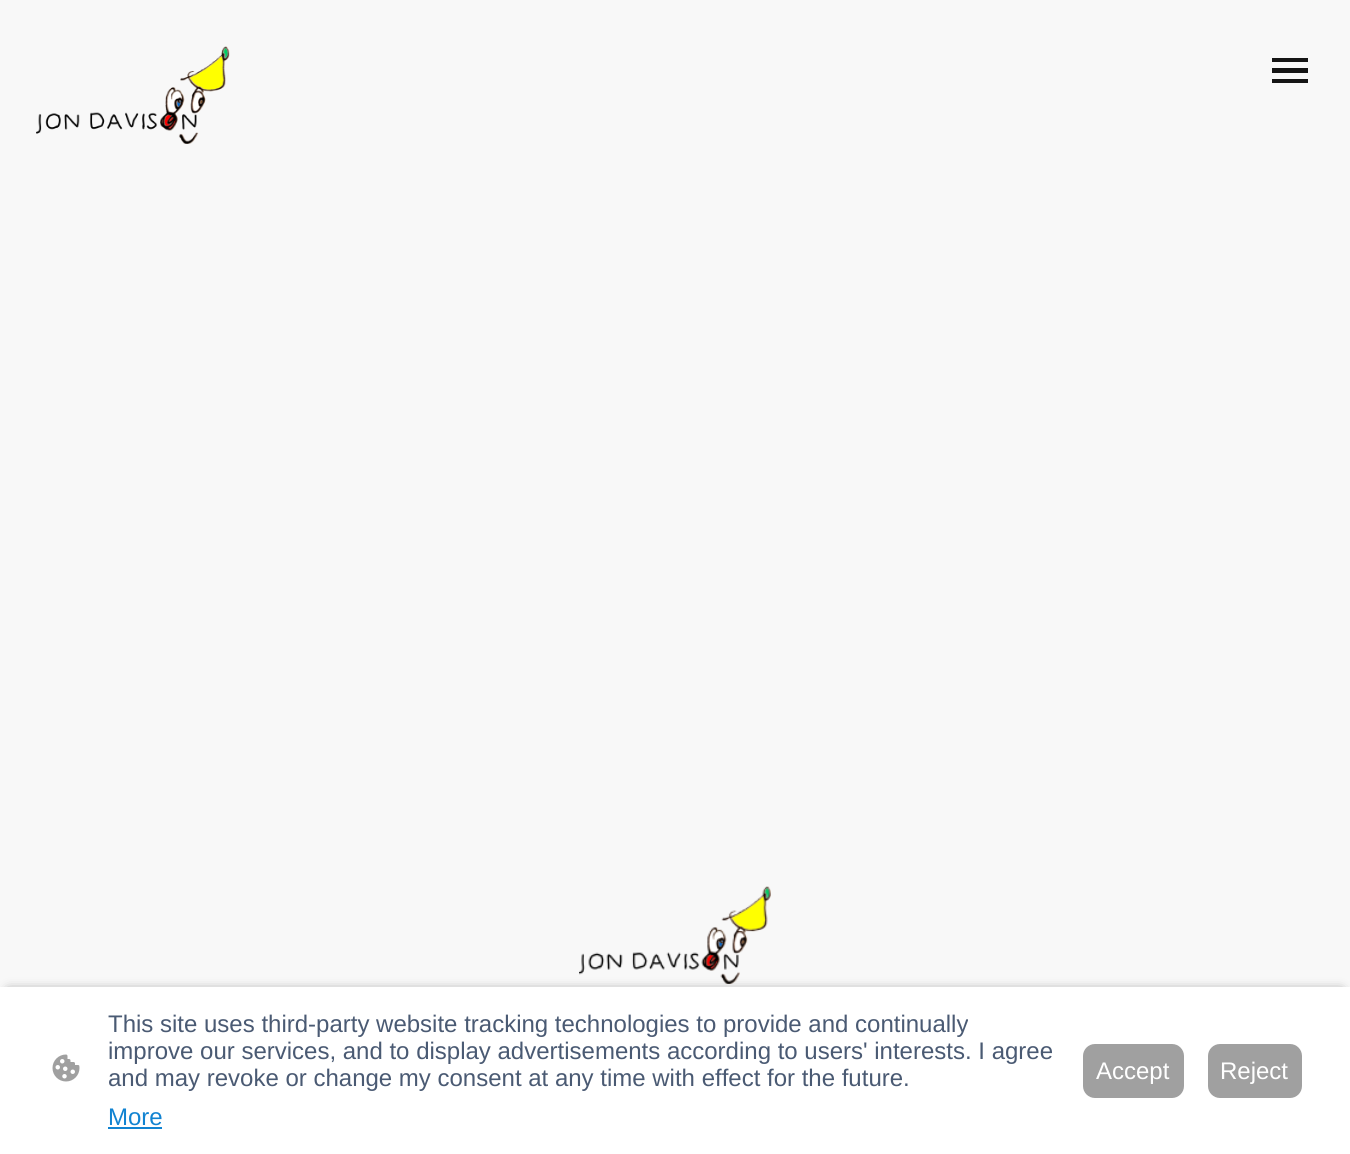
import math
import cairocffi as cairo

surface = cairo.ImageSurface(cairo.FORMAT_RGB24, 1350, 1154)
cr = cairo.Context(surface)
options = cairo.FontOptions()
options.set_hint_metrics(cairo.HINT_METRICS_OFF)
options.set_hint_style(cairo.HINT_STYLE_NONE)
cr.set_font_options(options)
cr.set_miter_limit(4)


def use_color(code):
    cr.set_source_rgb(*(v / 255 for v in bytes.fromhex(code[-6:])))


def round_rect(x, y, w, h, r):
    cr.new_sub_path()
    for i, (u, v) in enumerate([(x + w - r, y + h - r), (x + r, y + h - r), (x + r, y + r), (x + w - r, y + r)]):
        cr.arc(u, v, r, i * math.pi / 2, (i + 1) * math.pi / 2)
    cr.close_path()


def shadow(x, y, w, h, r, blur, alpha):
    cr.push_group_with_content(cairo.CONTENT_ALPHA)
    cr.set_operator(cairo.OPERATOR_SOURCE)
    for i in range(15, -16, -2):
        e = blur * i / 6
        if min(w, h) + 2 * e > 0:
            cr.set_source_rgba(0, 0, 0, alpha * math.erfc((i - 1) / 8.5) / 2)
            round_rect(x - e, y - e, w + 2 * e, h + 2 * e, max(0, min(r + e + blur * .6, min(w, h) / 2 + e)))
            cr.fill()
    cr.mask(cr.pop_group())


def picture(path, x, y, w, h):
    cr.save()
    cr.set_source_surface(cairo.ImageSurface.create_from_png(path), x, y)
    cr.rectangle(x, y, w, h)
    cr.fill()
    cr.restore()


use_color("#f8f8f8")
cr.paint()
picture("img1.png", 36, 46, 194, 98)
use_color("#151515")
cr.rectangle(1272, 58, 36, 4)
cr.fill()
cr.rectangle(1272, 68, 36, 5)
cr.fill()
cr.rectangle(1272, 79, 36, 4)
cr.fill()
picture("img2.png", 579, 886, 192, 98)
use_color("#000000")
shadow(9, 992, 1332, 150, 0, 6, 0.63)
use_color("#ffffff")
cr.rectangle(0, 987, 1350, 167)
cr.fill()
picture("img3.png", 52, 1054, 28, 28)
cr.select_font_face("Liberation Sans")
cr.set_font_size(24)
use_color("#4a5a73")
cr.move_to(108, 1032)
cr.show_text("This site uses third-party website tracking technologies to provide and continually")
cr.move_to(108, 1059)
cr.show_text("improve our services, and to display advertisements according to users' interests. I agree")
cr.move_to(108, 1086)
cr.show_text("and may revoke or change my consent at any time with effect for the future.")
use_color("#1183d1")
cr.move_to(108, 1125)
cr.show_text("More")
cr.rectangle(108, 1127, 54, 2)
cr.fill()
use_color("#a0a0a0")
round_rect(1084, 1045, 99, 52, 11)
cr.fill_preserve()
cr.stroke()
use_color("#ffffff")
cr.move_to(1096, 1079)
cr.show_text("Accept")
use_color("#a0a0a0")
round_rect(1209, 1045, 92, 52, 11)
cr.fill_preserve()
cr.stroke()
use_color("#ffffff")
cr.move_to(1220, 1079)
cr.show_text("Reject")
surface.write_to_png("result.png")
